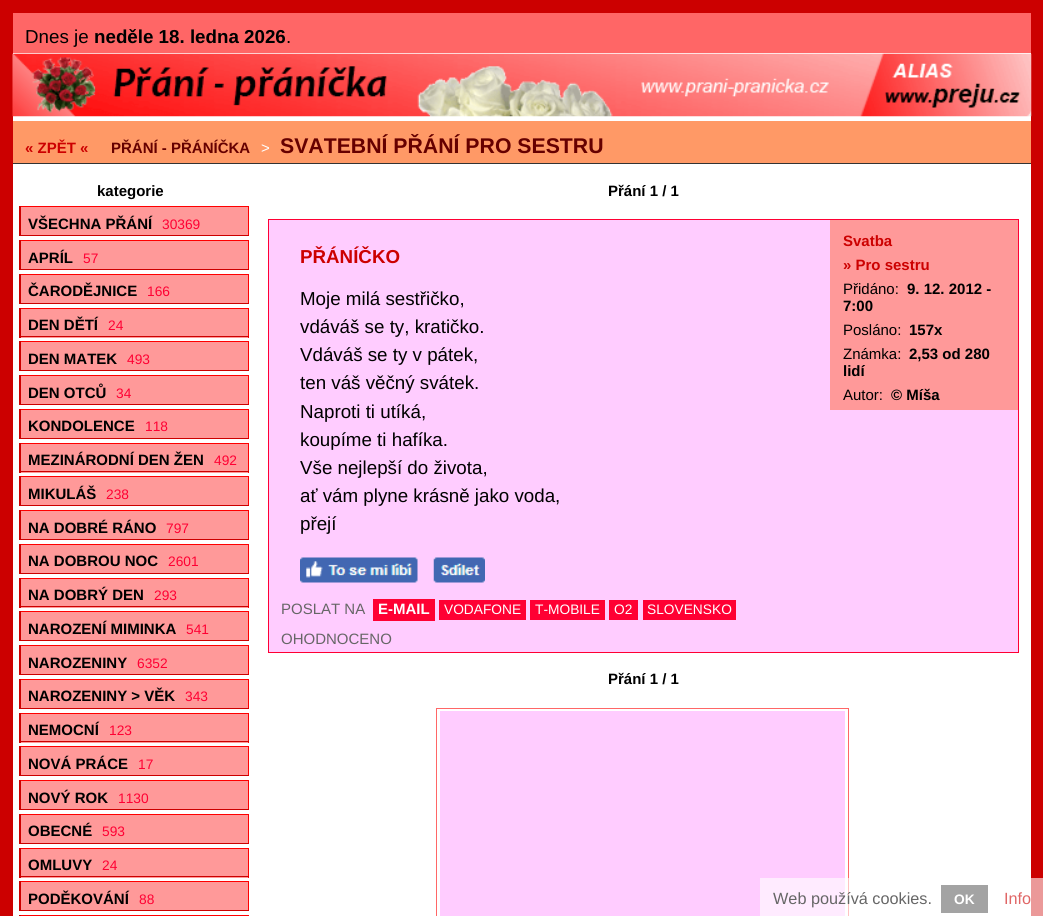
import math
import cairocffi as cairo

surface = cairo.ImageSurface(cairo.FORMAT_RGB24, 1043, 916)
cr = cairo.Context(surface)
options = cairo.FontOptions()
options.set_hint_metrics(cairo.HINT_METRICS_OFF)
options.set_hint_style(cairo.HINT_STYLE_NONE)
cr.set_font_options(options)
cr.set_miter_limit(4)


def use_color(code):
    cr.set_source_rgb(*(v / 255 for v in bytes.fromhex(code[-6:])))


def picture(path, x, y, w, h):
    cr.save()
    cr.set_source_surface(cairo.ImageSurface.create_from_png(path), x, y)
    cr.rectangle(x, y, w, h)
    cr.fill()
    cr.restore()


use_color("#cc0000")
cr.paint()
use_color("#ffffff")
cr.rectangle(13, 116, 1018, 800)
cr.fill()
use_color("#ff6666")
cr.rectangle(13, 13, 1018, 40)
cr.fill()
use_color("#ffffff")
cr.rectangle(13, 53, 1018, 1)
cr.fill()
cr.select_font_face("Liberation Sans")
cr.set_font_size(18.75)
use_color("#000000")
cr.move_to(25, 43)
cr.show_text("Dnes je")
cr.select_font_face("Liberation Sans", cairo.FONT_SLANT_NORMAL, cairo.FONT_WEIGHT_BOLD)
cr.move_to(94, 43)
cr.show_text("neděle 18. ledna 2026")
cr.select_font_face("Liberation Sans")
cr.move_to(286, 43)
cr.show_text(".")
picture("img1.png", 12, 53, 1020, 64)
use_color("#ff9966")
cr.rectangle(13, 121, 1018, 42)
cr.fill()
use_color("#333333")
cr.rectangle(13, 163, 1018, 1)
cr.fill()
cr.select_font_face("Liberation Sans", cairo.FONT_SLANT_NORMAL, cairo.FONT_WEIGHT_BOLD)
cr.set_font_size(15)
use_color("#cc0000")
cr.move_to(25, 153)
cr.show_text("« ZPĚT «")
use_color("#660000")
cr.move_to(111, 153)
cr.show_text("PŘÁNÍ - PŘÁNÍČKA")
cr.select_font_face("Liberation Sans")
use_color("#ffffff")
cr.move_to(261, 153)
cr.show_text(">")
cr.select_font_face("Liberation Sans", cairo.FONT_SLANT_NORMAL, cairo.FONT_WEIGHT_BOLD)
cr.set_font_size(21.25)
use_color("#660000")
cr.move_to(280, 153)
cr.show_text("SVATEBNÍ PŘÁNÍ PRO SESTRU")
cr.set_font_size(15)
use_color("#000000")
cr.move_to(97, 196)
cr.show_text("kategorie")
use_color("#cc0000")
cr.rectangle(19, 206, 2, 30)
cr.fill()
use_color("#ff9999")
cr.rectangle(21, 207, 227, 28)
cr.fill()
use_color("#ff0000")
cr.rectangle(21, 206, 228, 1)
cr.fill()
cr.rectangle(248, 206, 1, 30)
cr.fill()
use_color("#cc0000")
cr.rectangle(21, 235, 228, 1)
cr.fill()
use_color("#000000")
cr.move_to(28, 229)
cr.show_text("VŠECHNA PŘÁNÍ")
cr.select_font_face("Liberation Sans")
cr.set_font_size(13.75)
use_color("#ff0033")
cr.move_to(162, 229)
cr.show_text("30369")
use_color("#cc0000")
cr.rectangle(19, 240, 2, 30)
cr.fill()
use_color("#ff9999")
cr.rectangle(21, 241, 227, 28)
cr.fill()
use_color("#ff0000")
cr.rectangle(21, 240, 228, 1)
cr.fill()
cr.rectangle(248, 240, 1, 30)
cr.fill()
use_color("#cc0000")
cr.rectangle(21, 269, 228, 1)
cr.fill()
cr.select_font_face("Liberation Sans", cairo.FONT_SLANT_NORMAL, cairo.FONT_WEIGHT_BOLD)
cr.set_font_size(15)
use_color("#000000")
cr.move_to(28, 263)
cr.show_text("APRÍL")
cr.select_font_face("Liberation Sans")
cr.set_font_size(13.75)
use_color("#ff0033")
cr.move_to(83, 263)
cr.show_text("57")
use_color("#cc0000")
cr.rectangle(19, 274, 2, 30)
cr.fill()
use_color("#ff9999")
cr.rectangle(21, 275, 227, 28)
cr.fill()
use_color("#ff0000")
cr.rectangle(21, 274, 228, 1)
cr.fill()
cr.rectangle(248, 274, 1, 30)
cr.fill()
use_color("#cc0000")
cr.rectangle(21, 303, 228, 1)
cr.fill()
cr.select_font_face("Liberation Sans", cairo.FONT_SLANT_NORMAL, cairo.FONT_WEIGHT_BOLD)
cr.set_font_size(15)
use_color("#000000")
cr.move_to(28, 296)
cr.show_text("ČARODĚJNICE")
cr.select_font_face("Liberation Sans")
cr.set_font_size(13.75)
use_color("#ff0033")
cr.move_to(147, 296)
cr.show_text("166")
use_color("#cc0000")
cr.rectangle(19, 308, 2, 30)
cr.fill()
use_color("#ff9999")
cr.rectangle(21, 309, 227, 29)
cr.fill()
use_color("#ff0000")
cr.rectangle(21, 308, 228, 1)
cr.fill()
cr.rectangle(248, 308, 1, 30)
cr.fill()
use_color("#cc0000")
cr.rectangle(21, 336, 228, 1)
cr.fill()
cr.select_font_face("Liberation Sans", cairo.FONT_SLANT_NORMAL, cairo.FONT_WEIGHT_BOLD)
cr.set_font_size(15)
use_color("#000000")
cr.move_to(28, 330)
cr.show_text("DEN DĚTÍ")
cr.select_font_face("Liberation Sans")
cr.set_font_size(13.75)
use_color("#ff0033")
cr.move_to(108, 330)
cr.show_text("24")
use_color("#cc0000")
cr.rectangle(19, 341, 2, 30)
cr.fill()
use_color("#ff9999")
cr.rectangle(21, 342, 227, 28)
cr.fill()
use_color("#ff0000")
cr.rectangle(21, 341, 228, 1)
cr.fill()
cr.rectangle(248, 341, 1, 30)
cr.fill()
use_color("#cc0000")
cr.rectangle(21, 370, 228, 1)
cr.fill()
cr.select_font_face("Liberation Sans", cairo.FONT_SLANT_NORMAL, cairo.FONT_WEIGHT_BOLD)
cr.set_font_size(15)
use_color("#000000")
cr.move_to(28, 364)
cr.show_text("DEN MATEK")
cr.select_font_face("Liberation Sans")
cr.set_font_size(13.75)
use_color("#ff0033")
cr.move_to(127, 364)
cr.show_text("493")
use_color("#cc0000")
cr.rectangle(19, 375, 2, 30)
cr.fill()
use_color("#ff9999")
cr.rectangle(21, 376, 227, 28)
cr.fill()
use_color("#ff0000")
cr.rectangle(21, 375, 228, 1)
cr.fill()
cr.rectangle(248, 375, 1, 30)
cr.fill()
use_color("#cc0000")
cr.rectangle(21, 404, 228, 1)
cr.fill()
cr.select_font_face("Liberation Sans", cairo.FONT_SLANT_NORMAL, cairo.FONT_WEIGHT_BOLD)
cr.set_font_size(15)
use_color("#000000")
cr.move_to(28, 398)
cr.show_text("DEN OTCŮ")
cr.select_font_face("Liberation Sans")
cr.set_font_size(13.75)
use_color("#ff0033")
cr.move_to(116, 398)
cr.show_text("34")
use_color("#cc0000")
cr.rectangle(19, 409, 2, 30)
cr.fill()
use_color("#ff9999")
cr.rectangle(21, 410, 227, 28)
cr.fill()
use_color("#ff0000")
cr.rectangle(21, 409, 228, 1)
cr.fill()
cr.rectangle(248, 409, 1, 30)
cr.fill()
use_color("#cc0000")
cr.rectangle(21, 438, 228, 1)
cr.fill()
cr.select_font_face("Liberation Sans", cairo.FONT_SLANT_NORMAL, cairo.FONT_WEIGHT_BOLD)
cr.set_font_size(15)
use_color("#000000")
cr.move_to(28, 431)
cr.show_text("KONDOLENCE")
cr.select_font_face("Liberation Sans")
cr.set_font_size(13.75)
use_color("#ff0033")
cr.move_to(145, 431)
cr.show_text("118")
use_color("#cc0000")
cr.rectangle(19, 443, 2, 30)
cr.fill()
use_color("#ff9999")
cr.rectangle(21, 444, 227, 29)
cr.fill()
use_color("#ff0000")
cr.rectangle(21, 443, 228, 1)
cr.fill()
cr.rectangle(248, 443, 1, 30)
cr.fill()
use_color("#cc0000")
cr.rectangle(21, 471, 228, 1)
cr.fill()
cr.select_font_face("Liberation Sans", cairo.FONT_SLANT_NORMAL, cairo.FONT_WEIGHT_BOLD)
cr.set_font_size(15)
use_color("#000000")
cr.move_to(28, 465)
cr.show_text("MEZINÁRODNÍ DEN ŽEN")
cr.select_font_face("Liberation Sans")
cr.set_font_size(13.75)
use_color("#ff0033")
cr.move_to(214, 465)
cr.show_text("492")
use_color("#cc0000")
cr.rectangle(19, 476, 2, 30)
cr.fill()
use_color("#ff9999")
cr.rectangle(21, 477, 227, 28)
cr.fill()
use_color("#ff0000")
cr.rectangle(21, 476, 228, 1)
cr.fill()
cr.rectangle(248, 476, 1, 30)
cr.fill()
use_color("#cc0000")
cr.rectangle(21, 505, 228, 1)
cr.fill()
cr.select_font_face("Liberation Sans", cairo.FONT_SLANT_NORMAL, cairo.FONT_WEIGHT_BOLD)
cr.set_font_size(15)
use_color("#000000")
cr.move_to(28, 499)
cr.show_text("MIKULÁŠ")
cr.select_font_face("Liberation Sans")
cr.set_font_size(13.75)
use_color("#ff0033")
cr.move_to(106, 499)
cr.show_text("238")
use_color("#cc0000")
cr.rectangle(19, 510, 2, 30)
cr.fill()
use_color("#ff9999")
cr.rectangle(21, 511, 227, 28)
cr.fill()
use_color("#ff0000")
cr.rectangle(21, 510, 228, 1)
cr.fill()
cr.rectangle(248, 510, 1, 30)
cr.fill()
use_color("#cc0000")
cr.rectangle(21, 539, 228, 1)
cr.fill()
cr.select_font_face("Liberation Sans", cairo.FONT_SLANT_NORMAL, cairo.FONT_WEIGHT_BOLD)
cr.set_font_size(15)
use_color("#000000")
cr.move_to(28, 533)
cr.show_text("NA DOBRÉ RÁNO")
cr.select_font_face("Liberation Sans")
cr.set_font_size(13.75)
use_color("#ff0033")
cr.move_to(166, 533)
cr.show_text("797")
use_color("#cc0000")
cr.rectangle(19, 544, 2, 30)
cr.fill()
use_color("#ff9999")
cr.rectangle(21, 545, 227, 28)
cr.fill()
use_color("#ff0000")
cr.rectangle(21, 544, 228, 1)
cr.fill()
cr.rectangle(248, 544, 1, 30)
cr.fill()
use_color("#cc0000")
cr.rectangle(21, 573, 228, 1)
cr.fill()
cr.select_font_face("Liberation Sans", cairo.FONT_SLANT_NORMAL, cairo.FONT_WEIGHT_BOLD)
cr.set_font_size(15)
use_color("#000000")
cr.move_to(28, 566)
cr.show_text("NA DOBROU NOC")
cr.select_font_face("Liberation Sans")
cr.set_font_size(13.75)
use_color("#ff0033")
cr.move_to(168, 566)
cr.show_text("2601")
use_color("#cc0000")
cr.rectangle(19, 578, 2, 30)
cr.fill()
use_color("#ff9999")
cr.rectangle(21, 579, 227, 29)
cr.fill()
use_color("#ff0000")
cr.rectangle(21, 578, 228, 1)
cr.fill()
cr.rectangle(248, 578, 1, 30)
cr.fill()
use_color("#cc0000")
cr.rectangle(21, 606, 228, 1)
cr.fill()
cr.select_font_face("Liberation Sans", cairo.FONT_SLANT_NORMAL, cairo.FONT_WEIGHT_BOLD)
cr.set_font_size(15)
use_color("#000000")
cr.move_to(28, 600)
cr.show_text("NA DOBRÝ DEN")
cr.select_font_face("Liberation Sans")
cr.set_font_size(13.75)
use_color("#ff0033")
cr.move_to(154, 600)
cr.show_text("293")
use_color("#cc0000")
cr.rectangle(19, 611, 2, 30)
cr.fill()
use_color("#ff9999")
cr.rectangle(21, 612, 227, 28)
cr.fill()
use_color("#ff0000")
cr.rectangle(21, 611, 228, 1)
cr.fill()
cr.rectangle(248, 611, 1, 30)
cr.fill()
use_color("#cc0000")
cr.rectangle(21, 640, 228, 1)
cr.fill()
cr.select_font_face("Liberation Sans", cairo.FONT_SLANT_NORMAL, cairo.FONT_WEIGHT_BOLD)
cr.set_font_size(15)
use_color("#000000")
cr.move_to(28, 634)
cr.show_text("NAROZENÍ MIMINKA")
cr.select_font_face("Liberation Sans")
cr.set_font_size(13.75)
use_color("#ff0033")
cr.move_to(186, 634)
cr.show_text("541")
use_color("#cc0000")
cr.rectangle(19, 645, 2, 30)
cr.fill()
use_color("#ff9999")
cr.rectangle(21, 646, 227, 28)
cr.fill()
use_color("#ff0000")
cr.rectangle(21, 645, 228, 1)
cr.fill()
cr.rectangle(248, 645, 1, 30)
cr.fill()
use_color("#cc0000")
cr.rectangle(21, 674, 228, 1)
cr.fill()
cr.select_font_face("Liberation Sans", cairo.FONT_SLANT_NORMAL, cairo.FONT_WEIGHT_BOLD)
cr.set_font_size(15)
use_color("#000000")
cr.move_to(28, 668)
cr.show_text("NAROZENINY")
cr.select_font_face("Liberation Sans")
cr.set_font_size(13.75)
use_color("#ff0033")
cr.move_to(137, 668)
cr.show_text("6352")
use_color("#cc0000")
cr.rectangle(19, 679, 2, 30)
cr.fill()
use_color("#ff9999")
cr.rectangle(21, 680, 227, 28)
cr.fill()
use_color("#ff0000")
cr.rectangle(21, 679, 228, 1)
cr.fill()
cr.rectangle(248, 679, 1, 30)
cr.fill()
use_color("#cc0000")
cr.rectangle(21, 708, 228, 1)
cr.fill()
cr.select_font_face("Liberation Sans", cairo.FONT_SLANT_NORMAL, cairo.FONT_WEIGHT_BOLD)
cr.set_font_size(15)
use_color("#000000")
cr.move_to(28, 701)
cr.show_text("NAROZENINY > VĚK")
cr.select_font_face("Liberation Sans")
cr.set_font_size(13.75)
use_color("#ff0033")
cr.move_to(185, 701)
cr.show_text("343")
use_color("#cc0000")
cr.rectangle(19, 713, 2, 30)
cr.fill()
use_color("#ff9999")
cr.rectangle(21, 714, 227, 29)
cr.fill()
use_color("#ff0000")
cr.rectangle(21, 713, 228, 1)
cr.fill()
cr.rectangle(248, 713, 1, 30)
cr.fill()
use_color("#cc0000")
cr.rectangle(21, 741, 228, 1)
cr.fill()
cr.select_font_face("Liberation Sans", cairo.FONT_SLANT_NORMAL, cairo.FONT_WEIGHT_BOLD)
cr.set_font_size(15)
use_color("#000000")
cr.move_to(28, 735)
cr.show_text("NEMOCNÍ")
cr.select_font_face("Liberation Sans")
cr.set_font_size(13.75)
use_color("#ff0033")
cr.move_to(109, 735)
cr.show_text("123")
use_color("#cc0000")
cr.rectangle(19, 746, 2, 30)
cr.fill()
use_color("#ff9999")
cr.rectangle(21, 747, 227, 28)
cr.fill()
use_color("#ff0000")
cr.rectangle(21, 746, 228, 1)
cr.fill()
cr.rectangle(248, 746, 1, 30)
cr.fill()
use_color("#cc0000")
cr.rectangle(21, 775, 228, 1)
cr.fill()
cr.select_font_face("Liberation Sans", cairo.FONT_SLANT_NORMAL, cairo.FONT_WEIGHT_BOLD)
cr.set_font_size(15)
use_color("#000000")
cr.move_to(28, 769)
cr.show_text("NOVÁ PRÁCE")
cr.select_font_face("Liberation Sans")
cr.set_font_size(13.75)
use_color("#ff0033")
cr.move_to(138, 769)
cr.show_text("17")
use_color("#cc0000")
cr.rectangle(19, 780, 2, 30)
cr.fill()
use_color("#ff9999")
cr.rectangle(21, 781, 227, 28)
cr.fill()
use_color("#ff0000")
cr.rectangle(21, 780, 228, 1)
cr.fill()
cr.rectangle(248, 780, 1, 30)
cr.fill()
use_color("#cc0000")
cr.rectangle(21, 809, 228, 1)
cr.fill()
cr.select_font_face("Liberation Sans", cairo.FONT_SLANT_NORMAL, cairo.FONT_WEIGHT_BOLD)
cr.set_font_size(15)
use_color("#000000")
cr.move_to(28, 803)
cr.show_text("NOVÝ ROK")
cr.select_font_face("Liberation Sans")
cr.set_font_size(13.75)
use_color("#ff0033")
cr.move_to(118, 803)
cr.show_text("1130")
use_color("#cc0000")
cr.rectangle(19, 814, 2, 30)
cr.fill()
use_color("#ff9999")
cr.rectangle(21, 815, 227, 28)
cr.fill()
use_color("#ff0000")
cr.rectangle(21, 814, 228, 1)
cr.fill()
cr.rectangle(248, 814, 1, 30)
cr.fill()
use_color("#cc0000")
cr.rectangle(21, 843, 228, 1)
cr.fill()
cr.select_font_face("Liberation Sans", cairo.FONT_SLANT_NORMAL, cairo.FONT_WEIGHT_BOLD)
cr.set_font_size(15)
use_color("#000000")
cr.move_to(28, 836)
cr.show_text("OBECNÉ")
cr.select_font_face("Liberation Sans")
cr.set_font_size(13.75)
use_color("#ff0033")
cr.move_to(102, 836)
cr.show_text("593")
use_color("#cc0000")
cr.rectangle(19, 848, 2, 30)
cr.fill()
use_color("#ff9999")
cr.rectangle(21, 849, 227, 29)
cr.fill()
use_color("#ff0000")
cr.rectangle(21, 848, 228, 1)
cr.fill()
cr.rectangle(248, 848, 1, 30)
cr.fill()
use_color("#cc0000")
cr.rectangle(21, 876, 228, 1)
cr.fill()
cr.select_font_face("Liberation Sans", cairo.FONT_SLANT_NORMAL, cairo.FONT_WEIGHT_BOLD)
cr.set_font_size(15)
use_color("#000000")
cr.move_to(28, 870)
cr.show_text("OMLUVY")
cr.select_font_face("Liberation Sans")
cr.set_font_size(13.75)
use_color("#ff0033")
cr.move_to(102, 870)
cr.show_text("24")
use_color("#cc0000")
cr.rectangle(19, 881, 2, 30)
cr.fill()
use_color("#ff9999")
cr.rectangle(21, 882, 227, 28)
cr.fill()
use_color("#ff0000")
cr.rectangle(21, 881, 228, 1)
cr.fill()
cr.rectangle(248, 881, 1, 30)
cr.fill()
use_color("#cc0000")
cr.rectangle(21, 910, 228, 1)
cr.fill()
cr.select_font_face("Liberation Sans", cairo.FONT_SLANT_NORMAL, cairo.FONT_WEIGHT_BOLD)
cr.set_font_size(15)
use_color("#000000")
cr.move_to(28, 904)
cr.show_text("PODĚKOVÁNÍ")
cr.select_font_face("Liberation Sans")
cr.set_font_size(13.75)
use_color("#ff0033")
cr.move_to(139, 904)
cr.show_text("88")
use_color("#cc0000")
cr.rectangle(19, 915, 3, 1)
cr.fill()
use_color("#ff0000")
cr.rectangle(21, 915, 228, 1)
cr.fill()
cr.select_font_face("Liberation Sans", cairo.FONT_SLANT_NORMAL, cairo.FONT_WEIGHT_BOLD)
cr.set_font_size(15)
use_color("#000000")
cr.move_to(608, 196)
cr.show_text("Přání 1 / 1")
use_color("#ffccff")
cr.rectangle(268.5, 219.5, 750, 433)
cr.fill_preserve()
use_color("#ff0033")
cr.set_line_width(1)
cr.stroke()
cr.set_font_size(18.75)
use_color("#cc0000")
cr.move_to(300, 263)
cr.show_text("PŘÁNÍČKO")
cr.select_font_face("Liberation Sans")
use_color("#000000")
cr.move_to(300, 305)
cr.show_text("Moje milá sestřičko,")
cr.move_to(300, 333)
cr.show_text("vdáváš se ty, kratičko.")
cr.move_to(300, 361)
cr.show_text("Vdáváš se ty v pátek,")
cr.move_to(300, 389)
cr.show_text("ten váš věčný svátek.")
cr.move_to(300, 418)
cr.show_text("Naproti ti utíká,")
cr.move_to(300, 446)
cr.show_text("koupíme ti hafíka.")
cr.move_to(300, 474)
cr.show_text("Vše nejlepší do života,")
cr.move_to(300, 502)
cr.show_text("ať vám plyne krásně jako voda,")
cr.move_to(300, 530)
cr.show_text("přejí")
picture("img2.png", 300, 557, 118, 26)
picture("img3.png", 433, 557, 52, 26)
use_color("#ff9999")
cr.rectangle(830, 220, 188, 190)
cr.fill()
cr.select_font_face("Liberation Sans", cairo.FONT_SLANT_NORMAL, cairo.FONT_WEIGHT_BOLD)
cr.set_font_size(15)
use_color("#cc0000")
cr.move_to(843, 246)
cr.show_text("Svatba")
cr.move_to(843, 270)
cr.show_text("» Pro sestru")
cr.select_font_face("Liberation Sans")
use_color("#000000")
cr.move_to(843, 294)
cr.show_text("Přidáno:")
cr.select_font_face("Liberation Sans", cairo.FONT_SLANT_NORMAL, cairo.FONT_WEIGHT_BOLD)
cr.move_to(907, 294)
cr.show_text("9. 12. 2012 -")
cr.move_to(843, 311)
cr.show_text("7:00")
cr.select_font_face("Liberation Sans")
cr.move_to(843, 335)
cr.show_text("Posláno:")
cr.select_font_face("Liberation Sans", cairo.FONT_SLANT_NORMAL, cairo.FONT_WEIGHT_BOLD)
cr.move_to(909, 335)
cr.show_text("157x")
cr.select_font_face("Liberation Sans")
cr.move_to(843, 359)
cr.show_text("Známka:")
cr.select_font_face("Liberation Sans", cairo.FONT_SLANT_NORMAL, cairo.FONT_WEIGHT_BOLD)
cr.move_to(909, 359)
cr.show_text("2,53 od 280")
cr.move_to(843, 376)
cr.show_text("lidí")
cr.select_font_face("Liberation Sans")
cr.move_to(843, 400)
cr.show_text("Autor:")
cr.select_font_face("Liberation Sans", cairo.FONT_SLANT_NORMAL, cairo.FONT_WEIGHT_BOLD)
cr.move_to(891, 400)
cr.show_text("© Míša")
cr.select_font_face("Liberation Sans")
use_color("#666666")
cr.move_to(281, 614)
cr.show_text("POSLAT NA")
use_color("#ff0033")
cr.rectangle(373, 599, 62, 22)
cr.fill()
cr.select_font_face("Liberation Sans", cairo.FONT_SLANT_NORMAL, cairo.FONT_WEIGHT_BOLD)
use_color("#ffffff")
cr.move_to(378, 614)
cr.show_text("E-MAIL")
use_color("#ff0033")
cr.rectangle(439, 600, 87, 20)
cr.fill()
cr.select_font_face("Liberation Sans")
cr.set_font_size(13.75)
use_color("#ffffff")
cr.move_to(444, 614)
cr.show_text("VODAFONE")
use_color("#ff0033")
cr.rectangle(530, 600, 75, 20)
cr.fill()
use_color("#ffffff")
cr.move_to(535, 614)
cr.show_text("T-MOBILE")
use_color("#ff0033")
cr.rectangle(609, 600, 29, 20)
cr.fill()
use_color("#ffffff")
cr.move_to(614, 614)
cr.show_text("O2")
use_color("#ff0033")
cr.rectangle(643, 600, 93, 20)
cr.fill()
use_color("#ffffff")
cr.move_to(647, 614)
cr.show_text("SLOVENSKO")
cr.set_font_size(15)
use_color("#666666")
cr.move_to(281, 644)
cr.show_text("OHODNOCENO")
cr.select_font_face("Liberation Sans", cairo.FONT_SLANT_NORMAL, cairo.FONT_WEIGHT_BOLD)
use_color("#000000")
cr.move_to(608, 684)
cr.show_text("Přání 1 / 1")
cr.rectangle(436.5, 708.5, 412, 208)
use_color("#ff6666")
cr.stroke()
use_color("#ffccff")
cr.rectangle(440, 711, 405, 205)
cr.fill()
cr.set_source_rgba(1, 1, 1, 0.6)
cr.rectangle(760, 878, 283, 38)
cr.fill()
cr.select_font_face("Liberation Sans")
cr.set_font_size(16.25)
use_color("#666666")
cr.move_to(773, 904)
cr.show_text("Web používá cookies.")
use_color("#a3a3a3")
cr.rectangle(941, 885, 47, 28)
cr.fill()
cr.select_font_face("Liberation Sans", cairo.FONT_SLANT_NORMAL, cairo.FONT_WEIGHT_BOLD)
cr.set_font_size(13.75)
use_color("#ffffff")
cr.move_to(954, 904)
cr.show_text("OK")
cr.select_font_face("Liberation Sans")
cr.set_font_size(16.25)
use_color("#e06666")
cr.move_to(1004, 904)
cr.show_text("Info")
surface.write_to_png("result.png")
